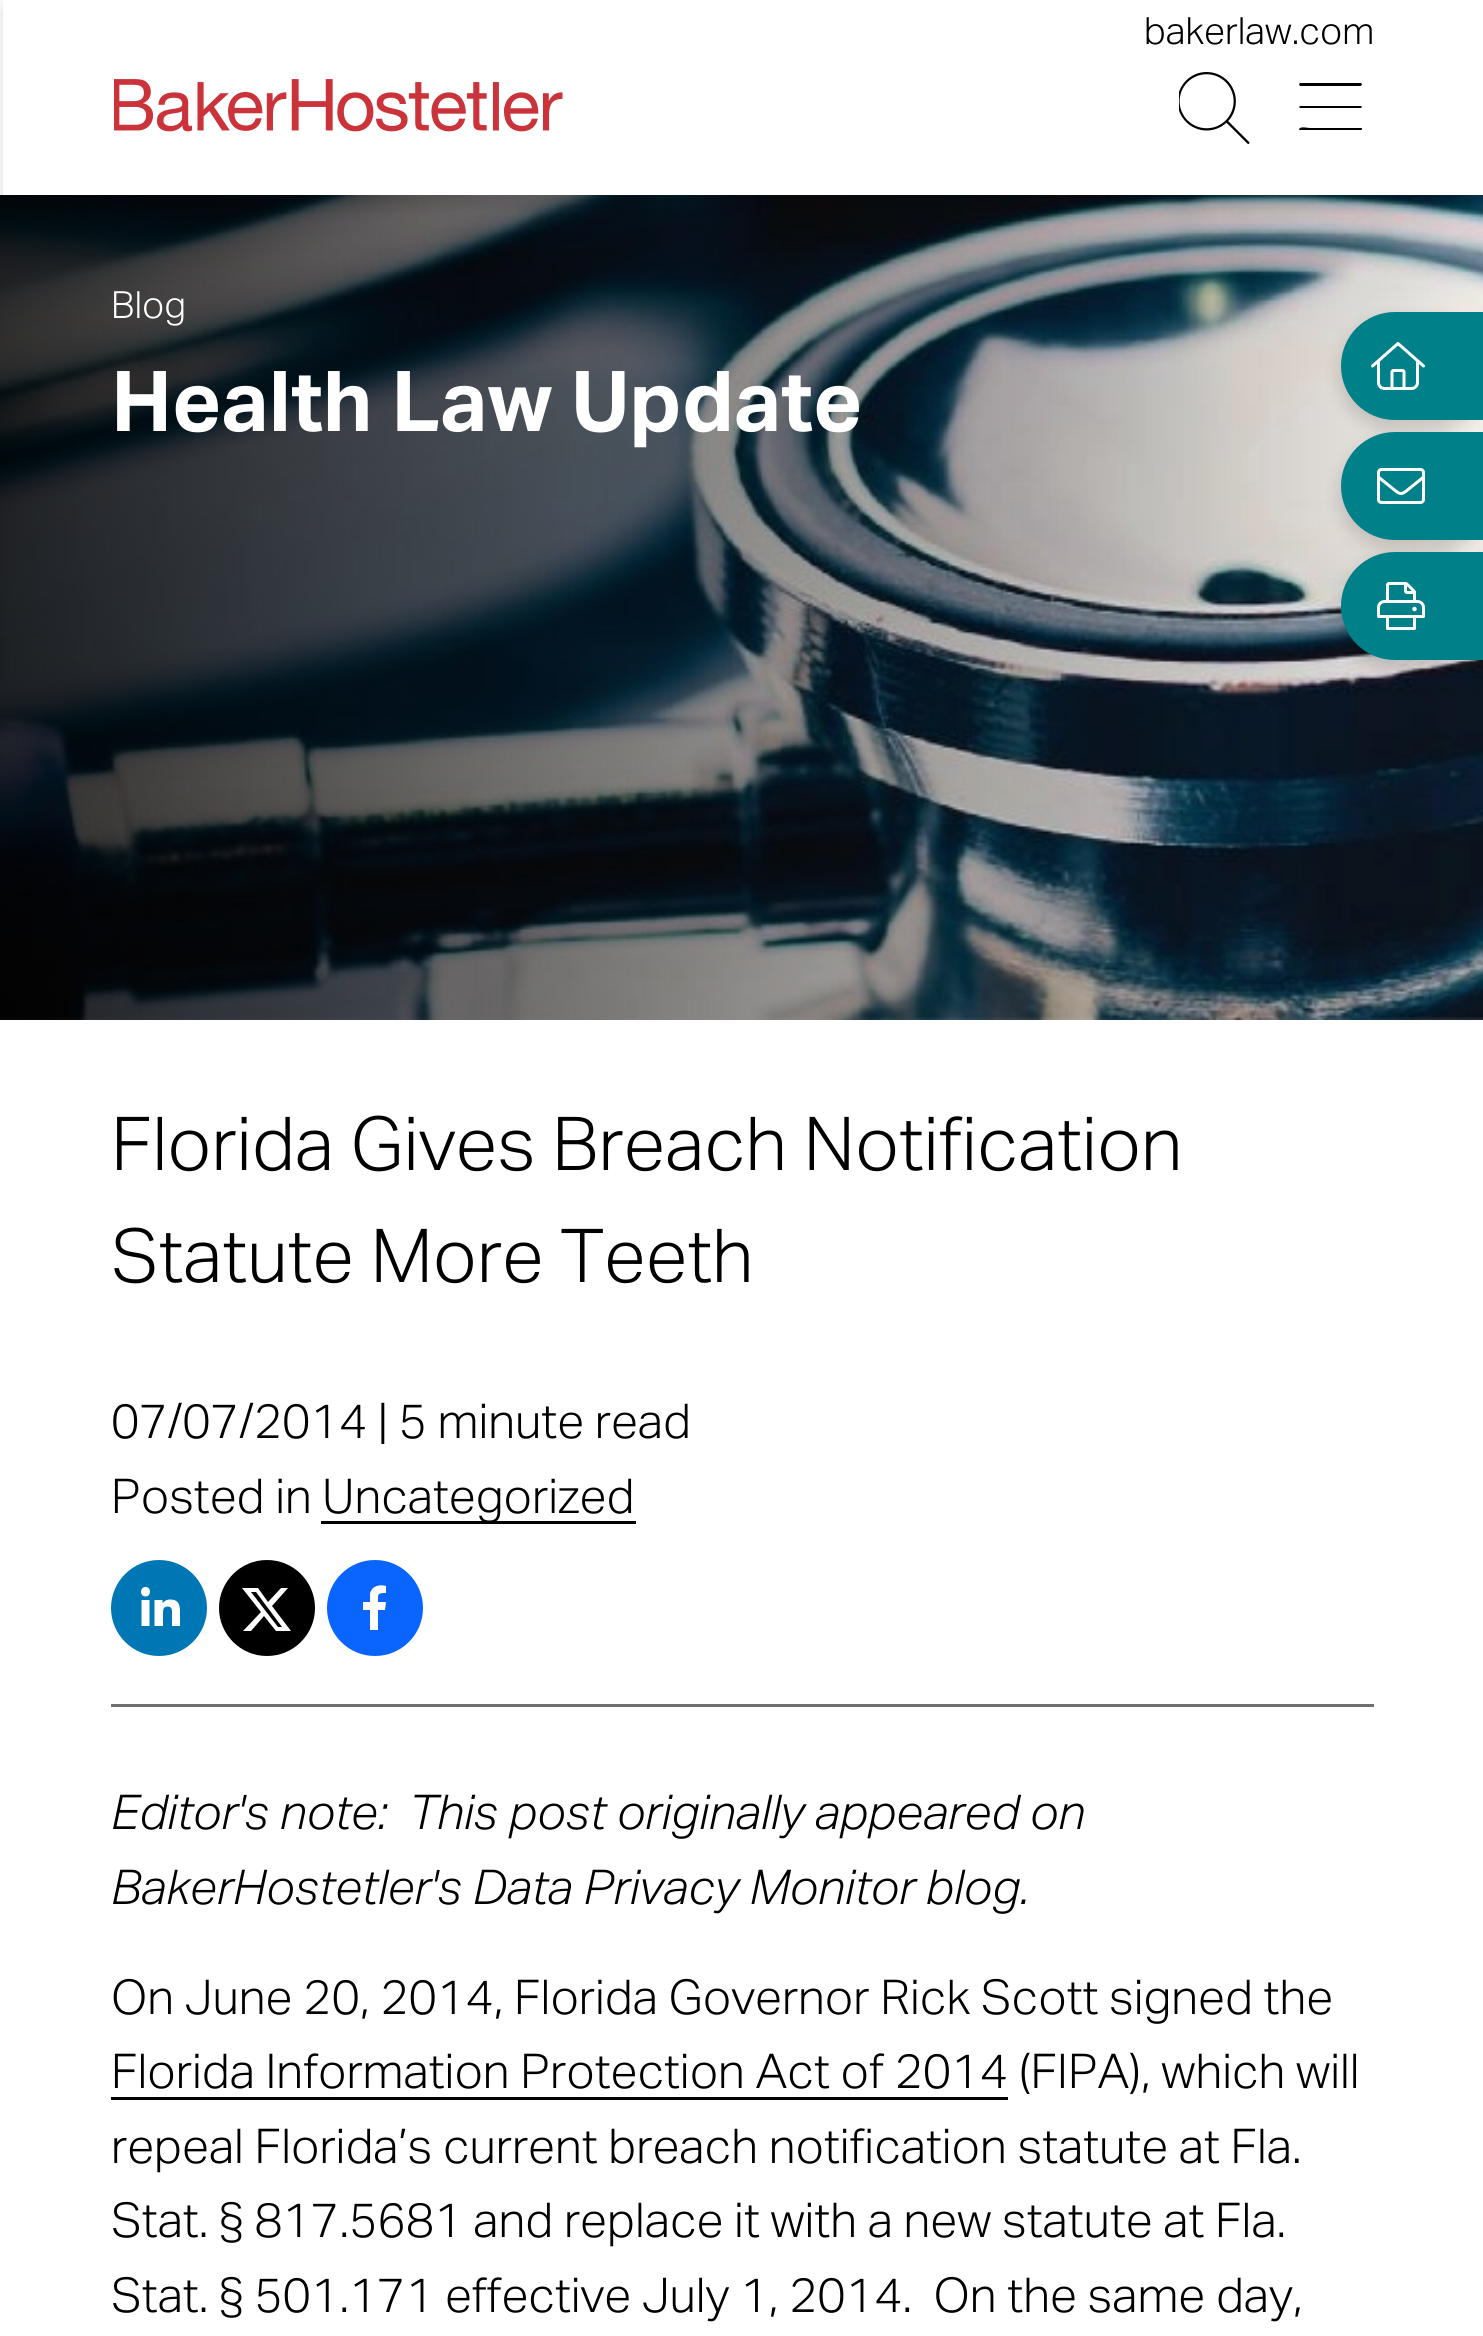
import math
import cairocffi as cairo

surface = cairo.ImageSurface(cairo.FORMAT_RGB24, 1483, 2336)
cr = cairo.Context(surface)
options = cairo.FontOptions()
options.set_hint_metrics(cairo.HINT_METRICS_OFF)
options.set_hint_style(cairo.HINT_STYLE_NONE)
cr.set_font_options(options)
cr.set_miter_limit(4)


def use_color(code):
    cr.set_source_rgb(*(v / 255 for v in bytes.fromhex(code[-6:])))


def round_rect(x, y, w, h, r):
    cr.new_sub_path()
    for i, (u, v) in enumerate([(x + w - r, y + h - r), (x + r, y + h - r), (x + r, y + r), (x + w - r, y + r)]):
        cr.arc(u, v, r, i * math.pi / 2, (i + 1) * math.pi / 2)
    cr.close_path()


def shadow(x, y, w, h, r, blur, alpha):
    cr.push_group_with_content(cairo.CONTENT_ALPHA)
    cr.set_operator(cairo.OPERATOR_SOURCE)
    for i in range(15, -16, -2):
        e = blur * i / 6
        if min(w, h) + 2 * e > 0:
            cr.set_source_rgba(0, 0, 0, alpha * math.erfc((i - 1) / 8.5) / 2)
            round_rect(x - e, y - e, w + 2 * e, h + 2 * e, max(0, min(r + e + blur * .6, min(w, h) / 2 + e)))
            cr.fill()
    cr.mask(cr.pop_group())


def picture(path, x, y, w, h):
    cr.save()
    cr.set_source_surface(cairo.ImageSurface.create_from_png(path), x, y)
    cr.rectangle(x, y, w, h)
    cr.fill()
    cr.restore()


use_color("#ffffff")
cr.paint()
picture("img3.png", 0, 195, 1483, 825)
cr.save()
cr.set_fill_rule(cairo.FILL_RULE_EVEN_ODD)
cr.new_path()
cr.move_to(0, 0)
cr.line_to(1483, 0)
cr.line_to(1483, 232)
cr.line_to(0, 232)
cr.close_path()
cr.move_to(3, 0)
cr.line_to(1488, 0)
cr.line_to(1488, 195)
cr.line_to(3, 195)
cr.close_path()
cr.clip()
use_color("#000000")
shadow(3, 9, 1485, 195, 0, 9, 0.16)
cr.restore()
cr.select_font_face("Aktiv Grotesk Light")
cr.set_font_size(37.5)
use_color("#000000")
cr.move_to(1144, 44)
cr.show_text("bakerlaw.com")
picture("img1.png", 1179, 72, 71, 72)
cr.new_path()
cr.move_to(1299, 84)
cr.line_to(1300, 83)
cr.line_to(1361, 83)
cr.line_to(1362, 84)
cr.line_to(1361, 86)
cr.line_to(1300, 86)
cr.close_path()
cr.move_to(1299, 107)
cr.line_to(1300, 106)
cr.line_to(1361, 106)
cr.line_to(1362, 107)
cr.line_to(1361, 108)
cr.line_to(1300, 108)
cr.close_path()
cr.move_to(1361, 130)
cr.line_to(1300, 130)
cr.curve_to(1299, 130, 1299, 129, 1299, 129)
cr.curve_to(1301, 126, 1307, 128, 1310, 128)
cr.line_to(1362, 128)
cr.curve_to(1362, 129, 1362, 130, 1361, 130)
cr.close_path()
cr.fill()
picture("img2.png", 114, 79, 449, 53)
use_color("#ffffff")
cr.move_to(111, 318)
cr.show_text("Blog")
cr.select_font_face("Aktiv Grotesk", cairo.FONT_SLANT_NORMAL, cairo.FONT_WEIGHT_BOLD)
cr.set_font_size(84)
cr.move_to(111, 431)
cr.show_text("Health Law Update")
use_color("#000000")
shadow(1341, 321, 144, 108, 54, 9, 0.16)
use_color("#00818a")
cr.new_path()
cr.move_to(1395, 312)
cr.line_to(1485, 312)
cr.line_to(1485, 420)
cr.line_to(1395, 420)
cr.curve_to(1365, 420, 1341, 396, 1341, 366)
cr.curve_to(1341, 336, 1365, 312, 1395, 312)
cr.close_path()
cr.fill()
picture("img4.png", 1371, 342, 54, 48)
use_color("#000000")
shadow(1341, 441, 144, 108, 54, 9, 0.16)
use_color("#00818a")
cr.new_path()
cr.move_to(1395, 432)
cr.line_to(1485, 432)
cr.line_to(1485, 540)
cr.line_to(1395, 540)
cr.curve_to(1365, 540, 1341, 516, 1341, 486)
cr.curve_to(1341, 456, 1365, 432, 1395, 432)
cr.close_path()
cr.fill()
picture("img5.png", 1377, 468, 48, 36)
use_color("#000000")
shadow(1341, 561, 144, 108, 54, 9, 0.16)
use_color("#00818a")
cr.new_path()
cr.move_to(1395, 552)
cr.line_to(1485, 552)
cr.line_to(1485, 660)
cr.line_to(1395, 660)
cr.curve_to(1365, 660, 1341, 636, 1341, 606)
cr.curve_to(1341, 576, 1365, 552, 1395, 552)
cr.close_path()
cr.fill()
picture("img6.png", 1377, 582, 48, 48)
cr.select_font_face("Aktiv Grotesk Light")
cr.set_font_size(74.4)
use_color("#000000")
cr.move_to(111, 1170)
cr.show_text("Florida Gives Breach Notification")
cr.move_to(111, 1282)
cr.show_text("Statute More Teeth")
use_color("#707070")
cr.rectangle(111, 1704, 1263, 3)
cr.fill()
cr.set_font_size(48)
use_color("#000000")
cr.move_to(111, 1438)
cr.show_text("07/07/2014 | 5 minute read")
cr.move_to(111, 1513)
cr.show_text("Posted in")
cr.rectangle(321, 1521, 315, 3)
cr.fill()
cr.move_to(322, 1513)
cr.show_text("Uncategorized")
use_color("#0077b5")
cr.new_path()
cr.arc(159, 1608, 48, 0, 2 * math.pi)
cr.fill()
use_color("#ffffff")
cr.new_path()
cr.move_to(141.5, 1626)
cr.line_to(149.5, 1626)
cr.line_to(149.5, 1600)
cr.line_to(141.5, 1600)
cr.close_path()
cr.move_to(145.5, 1587)
cr.curve_to(139.5, 1587, 139.5, 1596.5, 145.5, 1596.5)
cr.curve_to(151.5, 1596.5, 151.5, 1587, 145.5, 1587)
cr.close_path()
cr.move_to(170, 1599.5)
cr.curve_to(166.5, 1599.5, 163.5, 1601.5, 162.5, 1603.5)
cr.line_to(162.5, 1600)
cr.line_to(154.5, 1600)
cr.line_to(154.5, 1626)
cr.line_to(163, 1626)
cr.line_to(163, 1613)
cr.curve_to(163, 1609.5, 163.5, 1606.5, 167.5, 1606.5)
cr.curve_to(172, 1606.5, 172, 1610, 172, 1613)
cr.line_to(172, 1626)
cr.line_to(180, 1626)
cr.line_to(180, 1612)
cr.curve_to(180, 1604.5, 178.5, 1599.5, 170, 1599.5)
cr.close_path()
cr.fill()
use_color("#000000")
cr.arc(267, 1608, 48, 0, 2 * math.pi)
cr.fill()
use_color("#ffffff")
cr.new_path()
cr.move_to(281, 1588)
cr.line_to(288, 1588)
cr.line_to(272, 1606)
cr.line_to(291, 1631)
cr.line_to(276, 1631)
cr.line_to(264, 1616)
cr.line_to(251, 1631)
cr.line_to(243, 1631)
cr.line_to(261, 1612)
cr.line_to(242, 1588)
cr.line_to(258, 1588)
cr.line_to(268, 1602)
cr.close_path()
cr.move_to(278, 1627)
cr.line_to(282, 1627)
cr.line_to(256, 1592)
cr.line_to(251, 1592)
cr.close_path()
cr.fill()
use_color("#0965fe")
cr.arc(375, 1608, 48, 0, 2 * math.pi)
cr.fill()
use_color("#ffffff")
cr.new_path()
cr.move_to(378, 1630)
cr.line_to(378, 1610)
cr.line_to(385, 1610)
cr.line_to(386, 1602)
cr.line_to(378, 1602)
cr.curve_to(378, 1594, 377, 1593, 386, 1593)
cr.line_to(386, 1586)
cr.curve_to(380, 1584, 371, 1586, 370, 1594)
cr.line_to(370, 1602)
cr.line_to(363, 1602)
cr.line_to(363, 1610)
cr.line_to(370, 1610)
cr.line_to(370, 1630)
cr.close_path()
cr.fill()
cr.select_font_face("Aktiv Grotesk Light", cairo.FONT_SLANT_ITALIC)
use_color("#000000")
cr.move_to(111, 1829)
cr.show_text("Editor's note:  This post originally appeared on")
cr.move_to(111, 1904)
cr.show_text("BakerHostetler's Data Privacy Monitor blog.")
cr.select_font_face("Aktiv Grotesk Light")
cr.move_to(111, 2014)
cr.show_text("On June 20, 2014, Florida Governor Rick Scott signed the")
cr.move_to(111, 2088)
cr.show_text("Florida Information Protection Act of 2014 (FIPA), which will")
cr.rectangle(111, 2097, 897, 3)
cr.fill()
cr.move_to(111, 2163)
cr.show_text("repeal Florida’s current breach notification statute at Fla.")
cr.move_to(111, 2237)
cr.show_text("Stat. § 817.5681 and replace it with a new statute at Fla.")
cr.move_to(111, 2312)
cr.show_text("Stat. § 501.171 effective July 1, 2014.  On the same day,")
surface.write_to_png("result.png")
